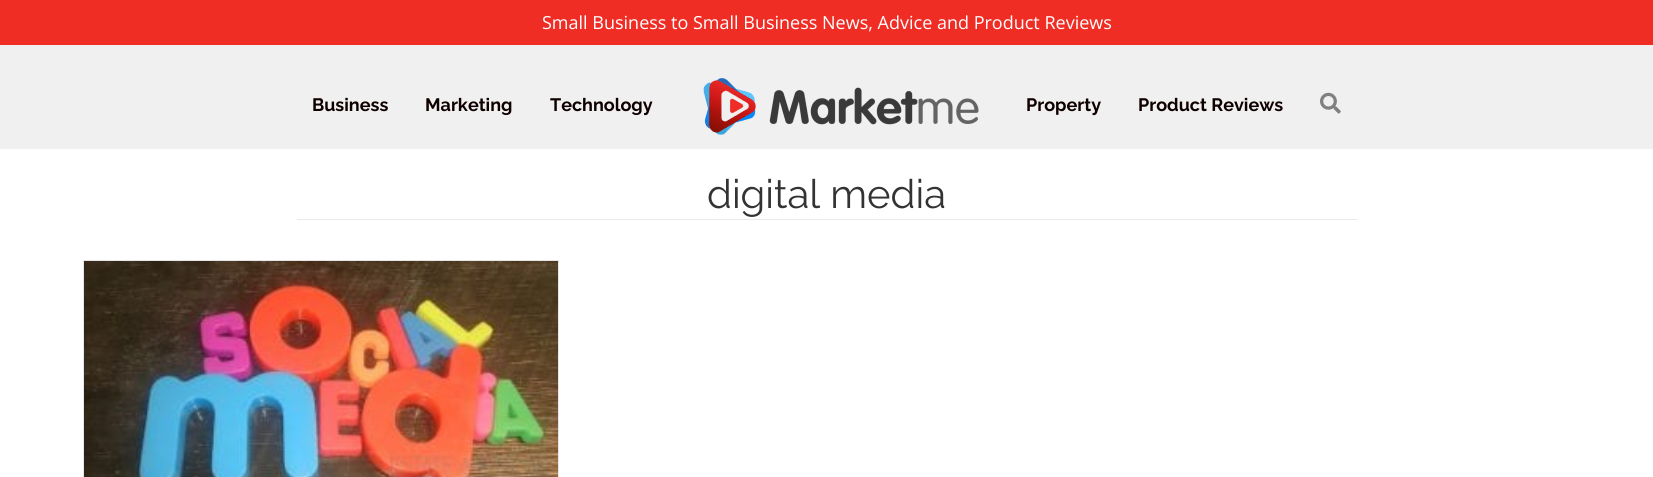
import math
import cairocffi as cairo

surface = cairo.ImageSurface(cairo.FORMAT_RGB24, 1653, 477)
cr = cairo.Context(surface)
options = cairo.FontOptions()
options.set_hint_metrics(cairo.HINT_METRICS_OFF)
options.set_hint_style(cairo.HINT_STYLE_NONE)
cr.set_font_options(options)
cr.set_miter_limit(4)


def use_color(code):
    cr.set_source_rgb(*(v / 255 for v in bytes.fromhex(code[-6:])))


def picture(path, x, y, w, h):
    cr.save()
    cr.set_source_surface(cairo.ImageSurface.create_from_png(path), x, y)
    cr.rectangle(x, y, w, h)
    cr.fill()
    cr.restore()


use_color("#f0f0f0")
cr.paint()
use_color("#f02d25")
cr.rectangle(0, 0, 1653, 45)
cr.fill()
cr.select_font_face("Open Sans")
cr.set_font_size(18)
use_color("#ffffff")
cr.move_to(542, 29)
cr.show_text("Small Business to Small Business News, Advice and Product Reviews")
cr.select_font_face("Raleway", cairo.FONT_SLANT_NORMAL, cairo.FONT_WEIGHT_BOLD)
use_color("#0f0000")
cr.move_to(312, 111)
cr.show_text("Business")
cr.move_to(425, 111)
cr.show_text("Marketing")
cr.move_to(550, 111)
cr.show_text("Technology")
picture("img1.png", 703, 78, 276, 57)
cr.move_to(1026, 111)
cr.show_text("Property")
cr.move_to(1138, 111)
cr.show_text("Product Reviews")
picture("img2.png", 1320, 92, 21, 22)
use_color("#ffffff")
cr.rectangle(0, 149, 1653, 328)
cr.fill()
cr.select_font_face("Raleway")
cr.set_font_size(40)
use_color("#333333")
cr.move_to(707, 208)
cr.show_text("digital media")
use_color("#eaeaea")
cr.rectangle(297, 219, 1060, 1)
cr.fill()
cr.rectangle(83.5, 260.5, 475, 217)
use_color("#e6e6e6")
cr.set_line_width(1)
cr.stroke()
picture("img3.png", 84, 261, 474, 216)
surface.write_to_png("result.png")
